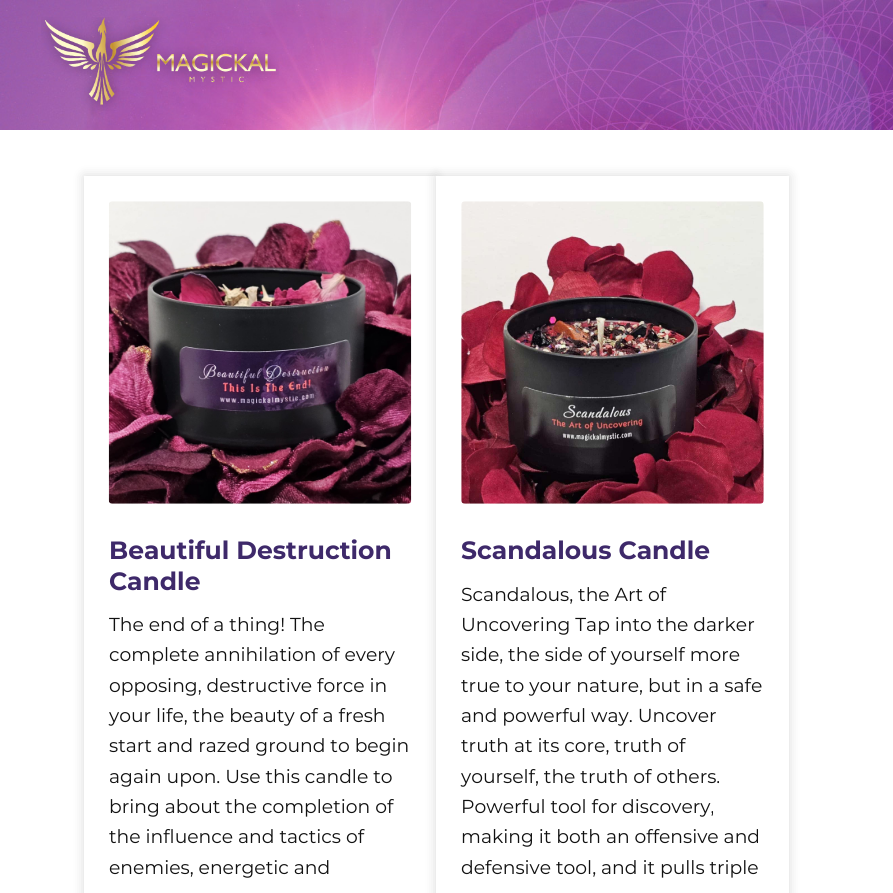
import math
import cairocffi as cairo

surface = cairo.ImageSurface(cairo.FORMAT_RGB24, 893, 893)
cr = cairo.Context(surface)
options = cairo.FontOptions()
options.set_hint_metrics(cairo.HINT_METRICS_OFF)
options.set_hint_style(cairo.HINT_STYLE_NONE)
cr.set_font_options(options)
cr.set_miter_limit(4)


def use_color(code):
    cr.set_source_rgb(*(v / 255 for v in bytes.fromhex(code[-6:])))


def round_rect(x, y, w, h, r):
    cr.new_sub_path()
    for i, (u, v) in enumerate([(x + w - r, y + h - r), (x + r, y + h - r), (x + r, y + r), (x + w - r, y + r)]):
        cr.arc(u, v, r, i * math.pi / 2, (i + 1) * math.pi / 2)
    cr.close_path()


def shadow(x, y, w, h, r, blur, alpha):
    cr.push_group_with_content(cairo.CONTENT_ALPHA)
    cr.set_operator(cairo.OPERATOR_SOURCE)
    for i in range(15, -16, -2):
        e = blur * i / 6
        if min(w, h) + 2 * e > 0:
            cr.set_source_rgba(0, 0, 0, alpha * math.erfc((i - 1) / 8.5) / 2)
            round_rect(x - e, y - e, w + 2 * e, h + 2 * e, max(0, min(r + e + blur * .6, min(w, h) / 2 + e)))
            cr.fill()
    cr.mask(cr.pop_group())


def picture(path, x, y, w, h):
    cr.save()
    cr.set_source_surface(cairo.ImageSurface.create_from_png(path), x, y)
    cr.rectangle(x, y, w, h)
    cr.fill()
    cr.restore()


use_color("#ffffff")
cr.paint()
picture("img1.png", 0, 0, 893, 130)
picture("img2.png", 41, 17, 238, 94)
use_color("#000000")
shadow(84, 176, 352, 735, 0, 6, 0.15)
use_color("#ffffff")
cr.rectangle(84, 176, 352, 717)
cr.fill()
picture("img3.png", 108, 201, 304, 303)
cr.select_font_face("Montserrat", cairo.FONT_SLANT_NORMAL, cairo.FONT_WEIGHT_BOLD)
cr.set_font_size(25)
use_color("#3e296a")
cr.move_to(109, 559)
cr.show_text("Beautiful Destruction")
cr.move_to(109, 590)
cr.show_text("Candle")
cr.select_font_face("Montserrat Thin")
cr.set_font_size(18.75)
use_color("#111111")
cr.move_to(109, 631)
cr.show_text("The end of a thing! The")
cr.move_to(109, 661)
cr.show_text("complete annihilation of every")
cr.move_to(109, 692)
cr.show_text("opposing, destructive force in")
cr.move_to(109, 722)
cr.show_text("your life, the beauty of a fresh")
cr.move_to(109, 752)
cr.show_text("start and razed ground to begin")
cr.move_to(109, 783)
cr.show_text("again upon. Use this candle to")
cr.move_to(109, 813)
cr.show_text("bring about the completion of")
cr.move_to(109, 843)
cr.show_text("the influence and tactics of")
cr.move_to(109, 874)
cr.show_text("enemies, energetic and")
use_color("#000000")
shadow(436, 176, 353, 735, 0, 6, 0.15)
use_color("#ffffff")
cr.rectangle(436, 176, 353, 717)
cr.fill()
picture("img4.png", 461, 201, 303, 303)
cr.select_font_face("Montserrat", cairo.FONT_SLANT_NORMAL, cairo.FONT_WEIGHT_BOLD)
cr.set_font_size(25)
use_color("#3e296a")
cr.move_to(461, 559)
cr.show_text("Scandalous Candle")
cr.select_font_face("Montserrat Thin")
cr.set_font_size(18.75)
use_color("#111111")
cr.move_to(461, 601)
cr.show_text("Scandalous, the Art of")
cr.move_to(461, 631)
cr.show_text("Uncovering Tap into the darker")
cr.move_to(461, 661)
cr.show_text("side, the side of yourself more")
cr.move_to(461, 692)
cr.show_text("true to your nature, but in a safe")
cr.move_to(461, 722)
cr.show_text("and powerful way. Uncover")
cr.move_to(461, 752)
cr.show_text("truth at its core, truth of")
cr.move_to(461, 783)
cr.show_text("yourself, the truth of others.")
cr.move_to(461, 813)
cr.show_text("Powerful tool for discovery,")
cr.move_to(461, 843)
cr.show_text("making it both an offensive and")
cr.move_to(461, 874)
cr.show_text("defensive tool, and it pulls triple")
surface.write_to_png("result.png")
